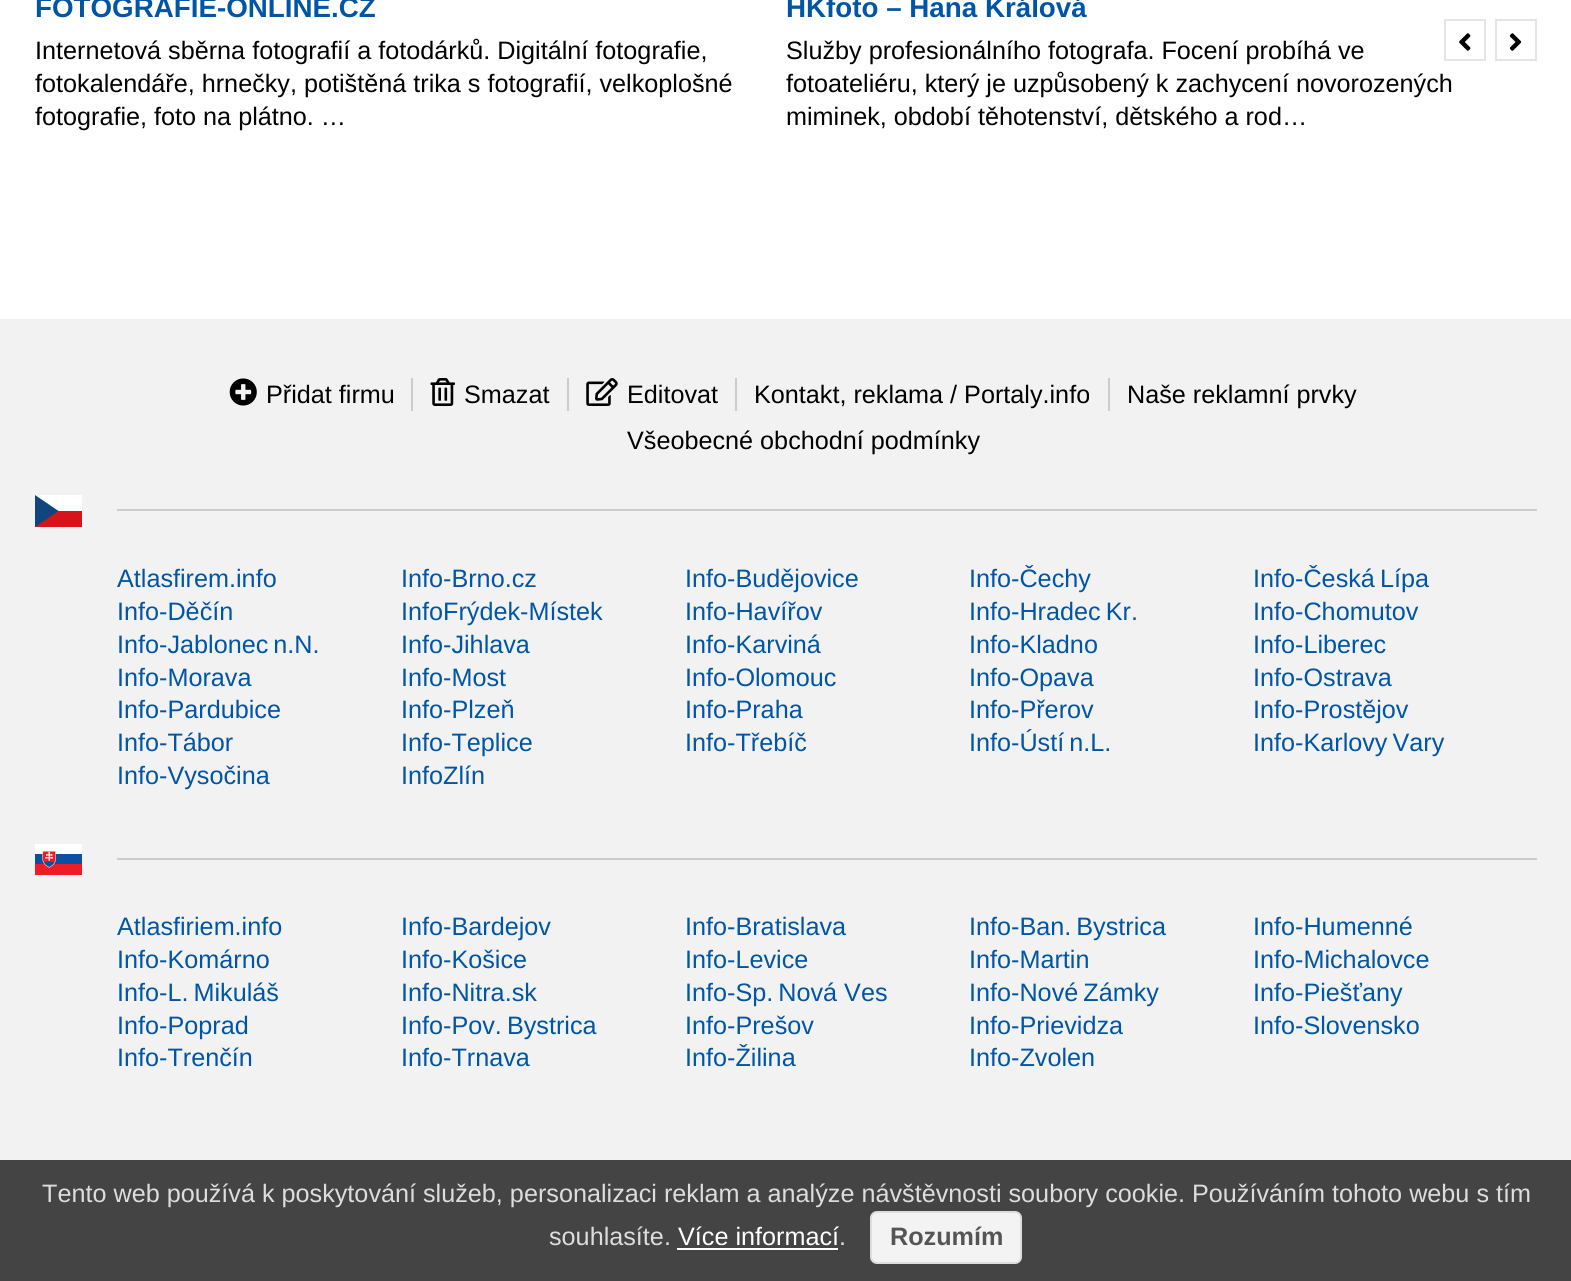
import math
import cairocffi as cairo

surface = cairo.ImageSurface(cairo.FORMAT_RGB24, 1571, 1281)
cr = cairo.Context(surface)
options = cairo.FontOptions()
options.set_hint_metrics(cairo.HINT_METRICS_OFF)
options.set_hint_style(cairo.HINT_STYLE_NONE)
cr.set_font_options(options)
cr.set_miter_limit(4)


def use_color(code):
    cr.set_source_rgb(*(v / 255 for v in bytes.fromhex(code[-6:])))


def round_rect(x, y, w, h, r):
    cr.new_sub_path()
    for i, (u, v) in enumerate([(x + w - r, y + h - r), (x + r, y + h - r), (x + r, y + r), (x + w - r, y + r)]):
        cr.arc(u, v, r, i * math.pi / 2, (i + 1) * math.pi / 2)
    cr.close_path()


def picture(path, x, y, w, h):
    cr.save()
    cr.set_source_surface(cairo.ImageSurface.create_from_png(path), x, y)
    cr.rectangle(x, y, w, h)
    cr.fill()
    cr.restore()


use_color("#ffffff")
cr.paint()
cr.select_font_face("Liberation Sans", cairo.FONT_SLANT_NORMAL, cairo.FONT_WEIGHT_BOLD)
cr.set_font_size(27.75)
use_color("#0055a5")
cr.move_to(35, 17)
cr.show_text("FOTOGRAFIE-ONLINE.CZ")
cr.select_font_face("Liberation Sans")
cr.set_font_size(25.2)
use_color("#000000")
cr.move_to(35, 59)
cr.show_text("Internetová sběrna fotografií a fotodárků. Digitální fotografie,")
cr.move_to(35, 92)
cr.show_text("fotokalendáře, hrnečky, potištěná trika s fotografií, velkoplošné")
cr.move_to(35, 125)
cr.show_text("fotografie, foto na plátno. …")
cr.select_font_face("Liberation Sans", cairo.FONT_SLANT_NORMAL, cairo.FONT_WEIGHT_BOLD)
cr.set_font_size(27.75)
use_color("#0055a5")
cr.move_to(786, 17)
cr.show_text("HKfoto – Hana Králová")
cr.select_font_face("Liberation Sans")
cr.set_font_size(25.2)
use_color("#000000")
cr.move_to(786, 59)
cr.show_text("Služby profesionálního fotografa. Focení probíhá ve")
cr.move_to(786, 92)
cr.show_text("fotoateliéru, který je uzpůsobený k zachycení novorozených")
cr.move_to(786, 125)
cr.show_text("miminek, období těhotenství, dětského a rod…")
cr.rectangle(1445, 20, 40, 40)
use_color("#e5e5e5")
cr.stroke()
picture("img1.png", 1459, 33, 12, 18)
cr.rectangle(1496, 20, 40, 40)
cr.stroke()
picture("img2.png", 1509, 33, 13, 18)
use_color("#f2f2f2")
cr.rectangle(0, 319, 1571, 841)
cr.fill()
picture("img3.png", 229, 378, 28, 28)
use_color("#000000")
cr.move_to(266, 403)
cr.show_text("Přidat firmu")
use_color("#cccccc")
cr.rectangle(411, 378, 2, 33)
cr.fill()
picture("img4.png", 430, 378, 25, 28)
use_color("#000000")
cr.move_to(464, 403)
cr.show_text("Smazat")
use_color("#cccccc")
cr.rectangle(567, 378, 2, 33)
cr.fill()
picture("img5.png", 586, 378, 32, 28)
use_color("#000000")
cr.move_to(627, 403)
cr.show_text("Editovat")
use_color("#cccccc")
cr.rectangle(735, 378, 2, 33)
cr.fill()
use_color("#000000")
cr.move_to(754, 403)
cr.show_text("Kontakt, reklama / Portaly.info")
use_color("#cccccc")
cr.rectangle(1108, 378, 2, 33)
cr.fill()
use_color("#000000")
cr.move_to(1127, 403)
cr.show_text("Naše reklamní prvky")
cr.move_to(627, 449)
cr.show_text("Všeobecné obchodní podmínky")
use_color("#d7141a")
cr.rectangle(35, 511, 47, 16)
cr.fill()
use_color("#ffffff")
cr.rectangle(35, 495, 47, 16)
cr.fill()
use_color("#11457e")
cr.new_path()
cr.move_to(58.5, 511)
cr.line_to(35, 495)
cr.line_to(35, 527)
cr.close_path()
cr.fill()
use_color("#cccccc")
cr.rectangle(117, 509, 1420, 2)
cr.fill()
use_color("#0055a5")
cr.move_to(117, 587)
cr.show_text("Atlasfirem.info")
cr.move_to(401, 587)
cr.show_text("Info-Brno.cz")
cr.move_to(685, 587)
cr.show_text("Info-Budějovice")
cr.move_to(969, 587)
cr.show_text("Info-Čechy")
cr.move_to(1253, 587)
cr.show_text("Info-Česká Lípa")
cr.move_to(117, 620)
cr.show_text("Info-Děčín")
cr.move_to(401, 620)
cr.show_text("InfoFrýdek-Místek")
cr.move_to(685, 620)
cr.show_text("Info-Havířov")
cr.move_to(969, 620)
cr.show_text("Info-Hradec Kr.")
cr.move_to(1253, 620)
cr.show_text("Info-Chomutov")
cr.move_to(117, 653)
cr.show_text("Info-Jablonec n.N.")
cr.move_to(401, 653)
cr.show_text("Info-Jihlava")
cr.move_to(685, 653)
cr.show_text("Info-Karviná")
cr.move_to(969, 653)
cr.show_text("Info-Kladno")
cr.move_to(1253, 653)
cr.show_text("Info-Liberec")
cr.move_to(117, 686)
cr.show_text("Info-Morava")
cr.move_to(401, 686)
cr.show_text("Info-Most")
cr.move_to(685, 686)
cr.show_text("Info-Olomouc")
cr.move_to(969, 686)
cr.show_text("Info-Opava")
cr.move_to(1253, 686)
cr.show_text("Info-Ostrava")
cr.move_to(117, 718)
cr.show_text("Info-Pardubice")
cr.move_to(401, 718)
cr.show_text("Info-Plzeň")
cr.move_to(685, 718)
cr.show_text("Info-Praha")
cr.move_to(969, 718)
cr.show_text("Info-Přerov")
cr.move_to(1253, 718)
cr.show_text("Info-Prostějov")
cr.move_to(117, 751)
cr.show_text("Info-Tábor")
cr.move_to(401, 751)
cr.show_text("Info-Teplice")
cr.move_to(685, 751)
cr.show_text("Info-Třebíč")
cr.move_to(969, 751)
cr.show_text("Info-Ústí n.L.")
cr.move_to(1253, 751)
cr.show_text("Info-Karlovy Vary")
cr.move_to(117, 784)
cr.show_text("Info-Vysočina")
cr.move_to(401, 784)
cr.show_text("InfoZlín")
picture("img6.png", 35, 844, 47, 31)
use_color("#cccccc")
cr.rectangle(117, 858, 1420, 2)
cr.fill()
use_color("#0055a5")
cr.move_to(117, 935)
cr.show_text("Atlasfiriem.info")
cr.move_to(401, 935)
cr.show_text("Info-Bardejov")
cr.move_to(685, 935)
cr.show_text("Info-Bratislava")
cr.move_to(969, 935)
cr.show_text("Info-Ban. Bystrica")
cr.move_to(1253, 935)
cr.show_text("Info-Humenné")
cr.move_to(117, 968)
cr.show_text("Info-Komárno")
cr.move_to(401, 968)
cr.show_text("Info-Košice")
cr.move_to(685, 968)
cr.show_text("Info-Levice")
cr.move_to(969, 968)
cr.show_text("Info-Martin")
cr.move_to(1253, 968)
cr.show_text("Info-Michalovce")
cr.move_to(117, 1001)
cr.show_text("Info-L. Mikuláš")
cr.move_to(401, 1001)
cr.show_text("Info-Nitra.sk")
cr.move_to(685, 1001)
cr.show_text("Info-Sp. Nová Ves")
cr.move_to(969, 1001)
cr.show_text("Info-Nové Zámky")
cr.move_to(1253, 1001)
cr.show_text("Info-Piešťany")
cr.move_to(117, 1034)
cr.show_text("Info-Poprad")
cr.move_to(401, 1034)
cr.show_text("Info-Pov. Bystrica")
cr.move_to(685, 1034)
cr.show_text("Info-Prešov")
cr.move_to(969, 1034)
cr.show_text("Info-Prievidza")
cr.move_to(1253, 1034)
cr.show_text("Info-Slovensko")
cr.move_to(117, 1066)
cr.show_text("Info-Trenčín")
cr.move_to(401, 1066)
cr.show_text("Info-Trnava")
cr.move_to(685, 1066)
cr.show_text("Info-Žilina")
cr.move_to(969, 1066)
cr.show_text("Info-Zvolen")
use_color("#444444")
cr.rectangle(0, 1160, 1571, 121)
cr.fill()
use_color("#dddddd")
cr.move_to(42, 1202)
cr.show_text("Tento web používá k poskytování služeb, personalizaci reklam a analýze návštěvnosti soubory cookie. Používáním tohoto webu s tím")
cr.move_to(549, 1245)
cr.show_text("souhlasíte.")
use_color("#ffffff")
cr.move_to(678, 1245)
cr.show_text("Více informací")
cr.rectangle(677, 1248, 161, 2)
cr.fill()
use_color("#dddddd")
cr.move_to(839, 1245)
cr.show_text(".")
use_color("#f3f3f3")
round_rect(871, 1212, 150, 51, 6)
cr.fill_preserve()
use_color("#dddddd")
cr.stroke()
cr.select_font_face("Liberation Sans", cairo.FONT_SLANT_NORMAL, cairo.FONT_WEIGHT_BOLD)
use_color("#555555")
cr.move_to(890, 1245)
cr.show_text("Rozumím")
surface.write_to_png("result.png")
